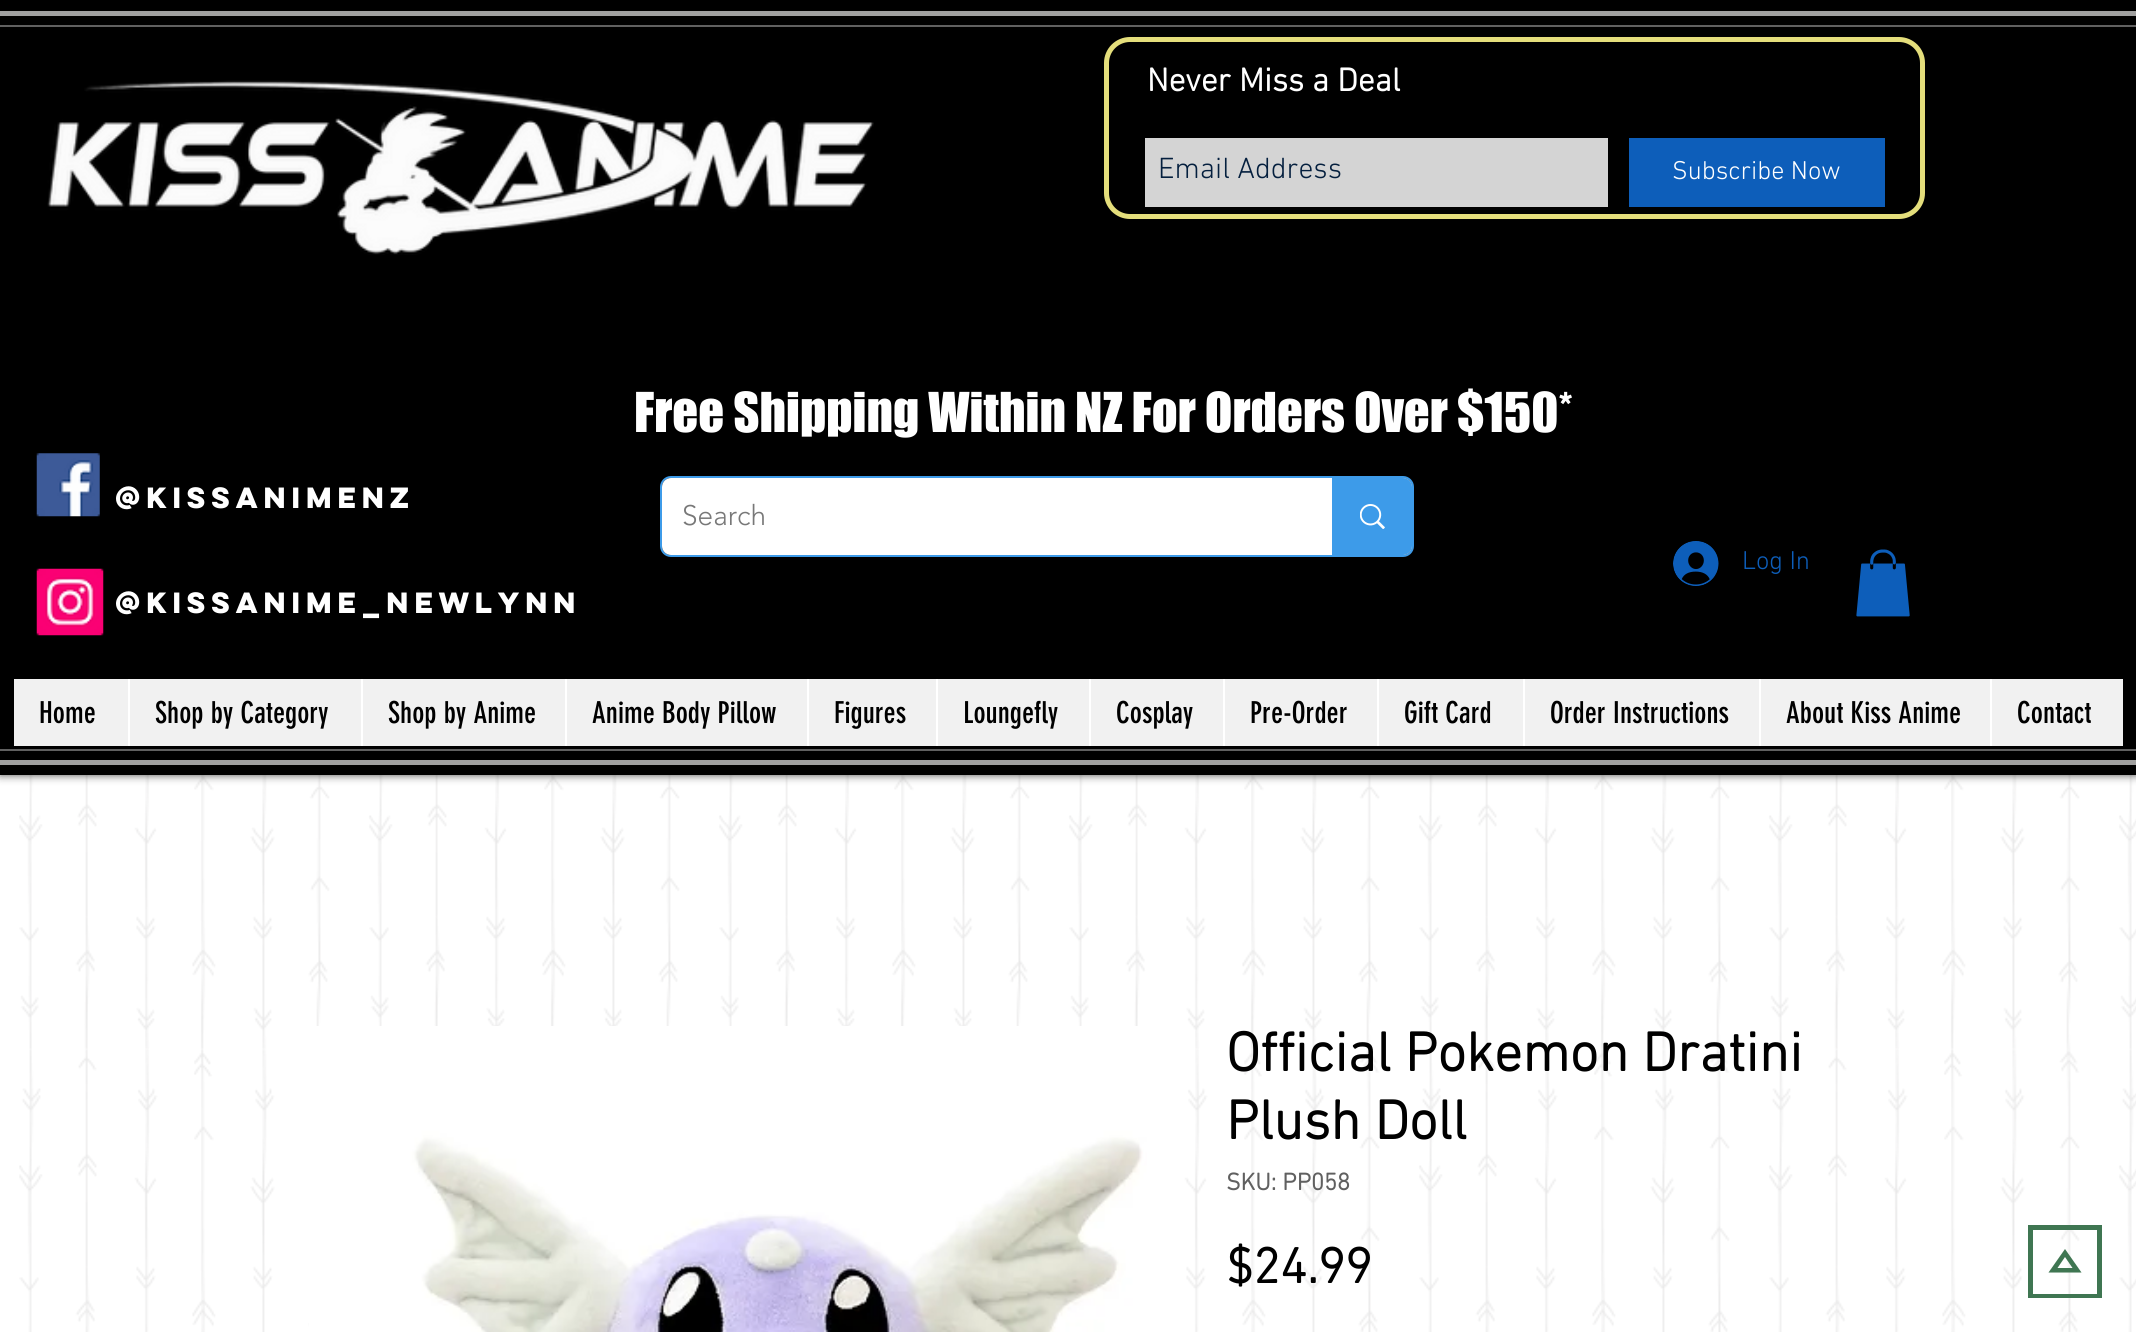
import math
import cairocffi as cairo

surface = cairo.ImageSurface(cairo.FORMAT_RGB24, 2136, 1332)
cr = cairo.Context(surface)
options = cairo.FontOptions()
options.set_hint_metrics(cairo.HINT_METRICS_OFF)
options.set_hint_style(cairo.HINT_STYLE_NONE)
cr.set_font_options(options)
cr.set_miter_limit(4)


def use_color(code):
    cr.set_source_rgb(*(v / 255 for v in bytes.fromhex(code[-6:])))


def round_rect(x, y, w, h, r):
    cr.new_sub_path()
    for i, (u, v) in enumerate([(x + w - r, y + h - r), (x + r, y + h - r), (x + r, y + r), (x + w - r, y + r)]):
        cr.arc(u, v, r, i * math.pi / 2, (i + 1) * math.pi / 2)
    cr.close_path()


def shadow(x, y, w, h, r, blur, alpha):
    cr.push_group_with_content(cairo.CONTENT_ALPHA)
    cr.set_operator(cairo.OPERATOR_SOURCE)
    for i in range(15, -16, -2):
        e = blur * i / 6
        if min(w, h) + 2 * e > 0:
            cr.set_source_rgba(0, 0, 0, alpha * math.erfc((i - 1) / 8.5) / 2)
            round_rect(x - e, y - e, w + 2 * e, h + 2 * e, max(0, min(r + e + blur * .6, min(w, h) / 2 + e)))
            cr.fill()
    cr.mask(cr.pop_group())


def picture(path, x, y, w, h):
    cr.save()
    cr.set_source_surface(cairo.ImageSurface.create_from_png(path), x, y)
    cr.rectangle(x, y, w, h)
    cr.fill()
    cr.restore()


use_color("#ffffff")
cr.paint()
picture("img8.png", 19, 775, 2117, 557)
use_color("#000000")
shadow(0, 0, 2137, 775, 0, 4.5, 0.7)
use_color("#000000")
cr.rectangle(0, 0, 2136, 775)
cr.fill()
use_color("#a0a09f")
cr.rectangle(0, 11, 2136, 5)
cr.fill()
cr.rectangle(0, 760, 2136, 5)
cr.fill()
use_color("#606060")
cr.rectangle(0, 25, 2136, 2)
cr.fill()
cr.rectangle(0, 749, 2136, 2)
cr.fill()
picture("img1.png", 47, 80, 827, 175)
round_rect(1106.5, 39.5, 816, 177, 23.5)
use_color("#e4de7b")
cr.set_line_width(5)
cr.stroke()
cr.select_font_face("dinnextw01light", cairo.FONT_SLANT_NORMAL, cairo.FONT_WEIGHT_BOLD)
cr.set_font_size(33.25)
use_color("#ffffff")
cr.move_to(1147, 91)
cr.show_text("Never Miss a Deal")
use_color("#d4d4d4")
cr.rectangle(1145, 138, 463, 69)
cr.fill()
cr.select_font_face("dinnextw01light Light")
cr.set_font_size(29.75)
use_color("#041f3e")
cr.move_to(1158, 178)
cr.show_text("Email Address")
use_color("#0d5eba")
cr.rectangle(1629, 138, 256, 69)
cr.fill()
cr.set_font_size(26.25)
use_color("#ffffff")
cr.move_to(1672, 179)
cr.show_text("Subscribe Now")
cr.select_font_face("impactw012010")
cr.set_font_size(50.75)
cr.move_to(634, 432)
cr.show_text("Free Shipping Within NZ For Orders Over $150*")
picture("img2.png", 36, 453, 64, 64)
cr.select_font_face("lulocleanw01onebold", cairo.FONT_SLANT_NORMAL, cairo.FONT_WEIGHT_BOLD)
cr.set_font_size(26.25)
cr.move_to(115, 508)
cr.show_text("@kissanimenz")
round_rect(661, 477, 752, 79, 10)
use_color("#3d9be9")
cr.set_line_width(2)
cr.stroke()
use_color("#ffffff")
round_rect(662, 478, 750, 77, 9)
cr.fill()
cr.select_font_face("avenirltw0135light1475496 Light")
cr.set_font_size(28)
use_color("#787878")
cr.move_to(682, 525)
cr.show_text("Search")
use_color("#3d9be9")
cr.new_path()
cr.move_to(1332, 478)
cr.line_to(1403, 478)
cr.curve_to(1408, 478, 1412, 482, 1412, 487)
cr.line_to(1412, 546)
cr.curve_to(1412, 551, 1408, 555, 1403, 555)
cr.line_to(1332, 555)
cr.close_path()
cr.fill()
picture("img3.png", 1360, 504, 25, 25)
picture("img4.png", 1673, 541, 46, 45)
cr.select_font_face("dinnextw01light Light")
cr.set_font_size(26.25)
use_color("#0d5eba")
cr.move_to(1742, 569)
cr.show_text("Log In")
picture("img5.png", 1856, 549, 54, 68)
picture("img6.png", 36, 568, 68, 68)
cr.select_font_face("lulocleanw01onebold", cairo.FONT_SLANT_NORMAL, cairo.FONT_WEIGHT_BOLD)
use_color("#ffffff")
cr.move_to(115, 613)
cr.show_text("@kissanime_NEWLYNN")
use_color("#f1f1f1")
cr.rectangle(14, 679, 2109, 67)
cr.fill()
cr.select_font_face("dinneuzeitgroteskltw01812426")
cr.set_font_size(29.75)
use_color("#000000")
cr.move_to(39, 723)
cr.show_text("Home")
use_color("#ffffff")
cr.rectangle(128, 679, 2, 67)
cr.fill()
use_color("#000000")
cr.move_to(155, 723)
cr.show_text("Shop by Category")
use_color("#ffffff")
cr.rectangle(361, 679, 2, 67)
cr.fill()
use_color("#000000")
cr.move_to(388, 723)
cr.show_text("Shop by Anime")
use_color("#ffffff")
cr.rectangle(565, 679, 2, 67)
cr.fill()
use_color("#000000")
cr.move_to(592, 723)
cr.show_text("Anime Body Pillow")
use_color("#ffffff")
cr.rectangle(807, 679, 2, 67)
cr.fill()
use_color("#000000")
cr.move_to(834, 723)
cr.show_text("Figures")
use_color("#ffffff")
cr.rectangle(936, 679, 2, 67)
cr.fill()
use_color("#000000")
cr.move_to(963, 723)
cr.show_text("Loungefly")
use_color("#ffffff")
cr.rectangle(1089, 679, 2, 67)
cr.fill()
use_color("#000000")
cr.move_to(1116, 723)
cr.show_text("Cosplay")
use_color("#ffffff")
cr.rectangle(1223, 679, 2, 67)
cr.fill()
use_color("#000000")
cr.move_to(1250, 723)
cr.show_text("Pre-Order")
use_color("#ffffff")
cr.rectangle(1377, 679, 2, 67)
cr.fill()
use_color("#000000")
cr.move_to(1404, 723)
cr.show_text("Gift Card")
use_color("#ffffff")
cr.rectangle(1523, 679, 2, 67)
cr.fill()
use_color("#000000")
cr.move_to(1550, 723)
cr.show_text("Order Instructions")
use_color("#ffffff")
cr.rectangle(1759, 679, 2, 67)
cr.fill()
use_color("#000000")
cr.move_to(1786, 723)
cr.show_text("About Kiss Anime")
use_color("#ffffff")
cr.rectangle(1990, 679, 2, 67)
cr.fill()
use_color("#000000")
cr.move_to(2017, 723)
cr.show_text("Contact")
picture("img7.png", 309, 1026, 838, 306)
cr.select_font_face("dinnextw01light", cairo.FONT_SLANT_NORMAL, cairo.FONT_WEIGHT_BOLD)
cr.set_font_size(56)
cr.move_to(1226, 1071)
cr.show_text("Official Pokemon Dratini")
cr.move_to(1226, 1139)
cr.show_text("Plush Doll")
cr.set_font_size(24.5)
use_color("#606060")
cr.move_to(1226, 1190)
cr.show_text("SKU: PP058")
cr.set_font_size(50.75)
use_color("#000000")
cr.move_to(1226, 1283)
cr.show_text("$24.99")
use_color("#3f7652")
cr.new_path()
cr.move_to(2081.5, 1272.5)
cr.line_to(2048.5, 1272.5)
cr.line_to(2065, 1249)
cr.close_path()
cr.move_to(2057.5, 1268)
cr.line_to(2072.5, 1268)
cr.line_to(2065, 1257)
cr.close_path()
cr.fill()
cr.new_path()
cr.move_to(2097, 1230)
cr.line_to(2097, 1294)
cr.line_to(2033, 1294)
cr.line_to(2033, 1230)
cr.close_path()
cr.move_to(2102, 1225)
cr.line_to(2028, 1225)
cr.line_to(2028, 1298)
cr.line_to(2102, 1298)
cr.close_path()
cr.fill()
surface.write_to_png("result.png")
